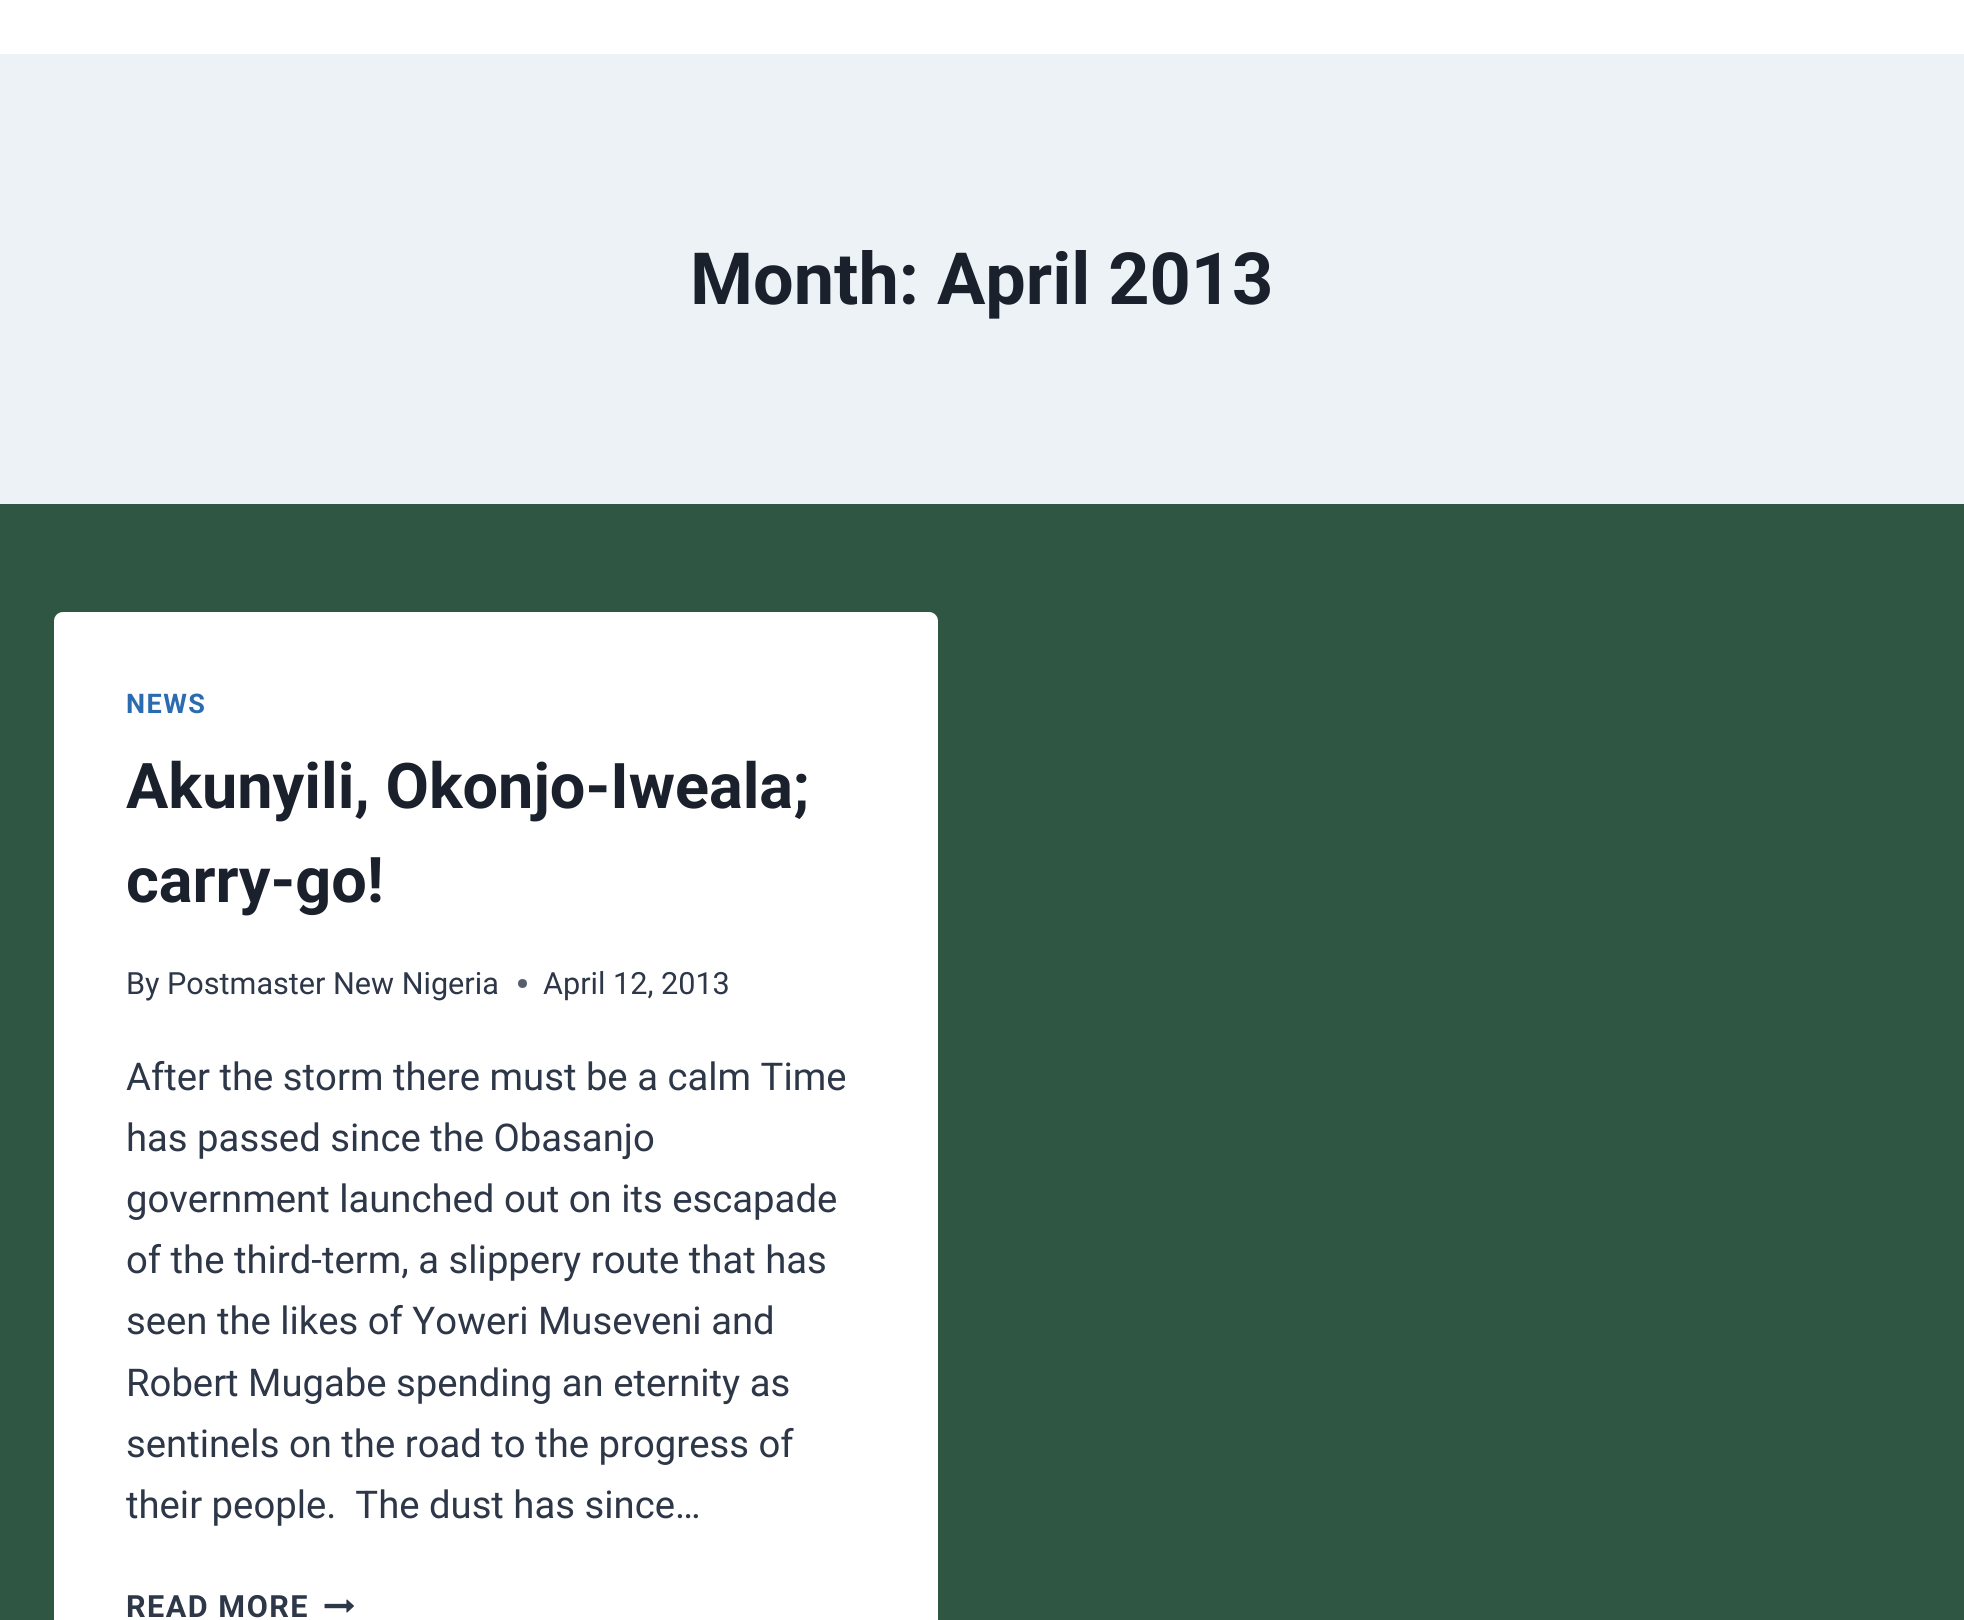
import math
import cairocffi as cairo

surface = cairo.ImageSurface(cairo.FORMAT_RGB24, 1964, 1620)
cr = cairo.Context(surface)
options = cairo.FontOptions()
options.set_hint_metrics(cairo.HINT_METRICS_OFF)
options.set_hint_style(cairo.HINT_STYLE_NONE)
cr.set_font_options(options)
cr.set_miter_limit(4)


def use_color(code):
    cr.set_source_rgb(*(v / 255 for v in bytes.fromhex(code[-6:])))


def spaced_text(x, y, s, letter, word):
    cr.move_to(x, y)
    for ch in s:
        cr.show_text(ch)
        cr.rel_move_to(letter + word * (ch == ' '), 0)


def round_rect(x, y, w, h, r):
    cr.new_sub_path()
    for i, (u, v) in enumerate([(x + w - r, y + h - r), (x + r, y + h - r), (x + r, y + r), (x + w - r, y + r)]):
        cr.arc(u, v, r, i * math.pi / 2, (i + 1) * math.pi / 2)
    cr.close_path()


def picture(path, x, y, w, h):
    cr.save()
    cr.set_source_surface(cairo.ImageSurface.create_from_png(path), x, y)
    cr.rectangle(x, y, w, h)
    cr.fill()
    cr.restore()


use_color("#2e5642")
cr.paint()
use_color("#ffffff")
cr.rectangle(0, 0, 1964, 54)
cr.fill()
use_color("#edf2f7")
cr.rectangle(0, 54, 1964, 450)
cr.fill()
cr.select_font_face("Roboto", cairo.FONT_SLANT_NORMAL, cairo.FONT_WEIGHT_BOLD)
cr.set_font_size(72)
use_color("#1a202c")
cr.move_to(690, 304)
cr.show_text("Month: April 2013")
use_color("#ffffff")
round_rect(54, 612, 884, 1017, 9)
cr.fill()
cr.set_font_size(27)
use_color("#2b6cb0")
spaced_text(126, 713, "NEWS", 1.5, 0)
cr.set_font_size(63)
use_color("#1a202c")
cr.move_to(126, 808)
cr.show_text("Akunyili, Okonjo-Iweala;")
cr.move_to(126, 902)
cr.show_text("carry-go!")
cr.select_font_face("Roboto")
cr.set_font_size(30.6)
use_color("#2d3748")
cr.move_to(126, 994)
cr.show_text("By")
cr.move_to(167, 994)
cr.show_text("Postmaster New Nigeria")
use_color("#575f6d")
cr.new_path()
cr.arc(522.5, 983.5, 4.5, 0, 2 * math.pi)
cr.fill()
use_color("#2d3748")
cr.move_to(543, 994)
cr.show_text("April 12, 2013")
cr.set_font_size(38.25)
cr.move_to(126, 1090)
cr.show_text("After the storm there must be a calm Time")
cr.move_to(126, 1151)
cr.show_text("has passed since the Obasanjo")
cr.move_to(126, 1212)
cr.show_text("government launched out on its escapade")
cr.move_to(126, 1273)
cr.show_text("of the third-term, a slippery route that has")
cr.move_to(126, 1334)
cr.show_text("seen the likes of Yoweri Museveni and")
cr.move_to(126, 1396)
cr.show_text("Robert Mugabe spending an eternity as")
cr.move_to(126, 1457)
cr.show_text("sentinels on the road to the progress of")
cr.move_to(126, 1518)
cr.show_text("their people.  The dust has since…")
cr.select_font_face("Roboto", cairo.FONT_SLANT_NORMAL, cairo.FONT_WEIGHT_BOLD)
cr.set_font_size(30.6)
spaced_text(126, 1617, "READ MORE", 1.5, 0)
picture("img1.png", 324, 1599, 30, 14)
surface.write_to_png("result.png")
